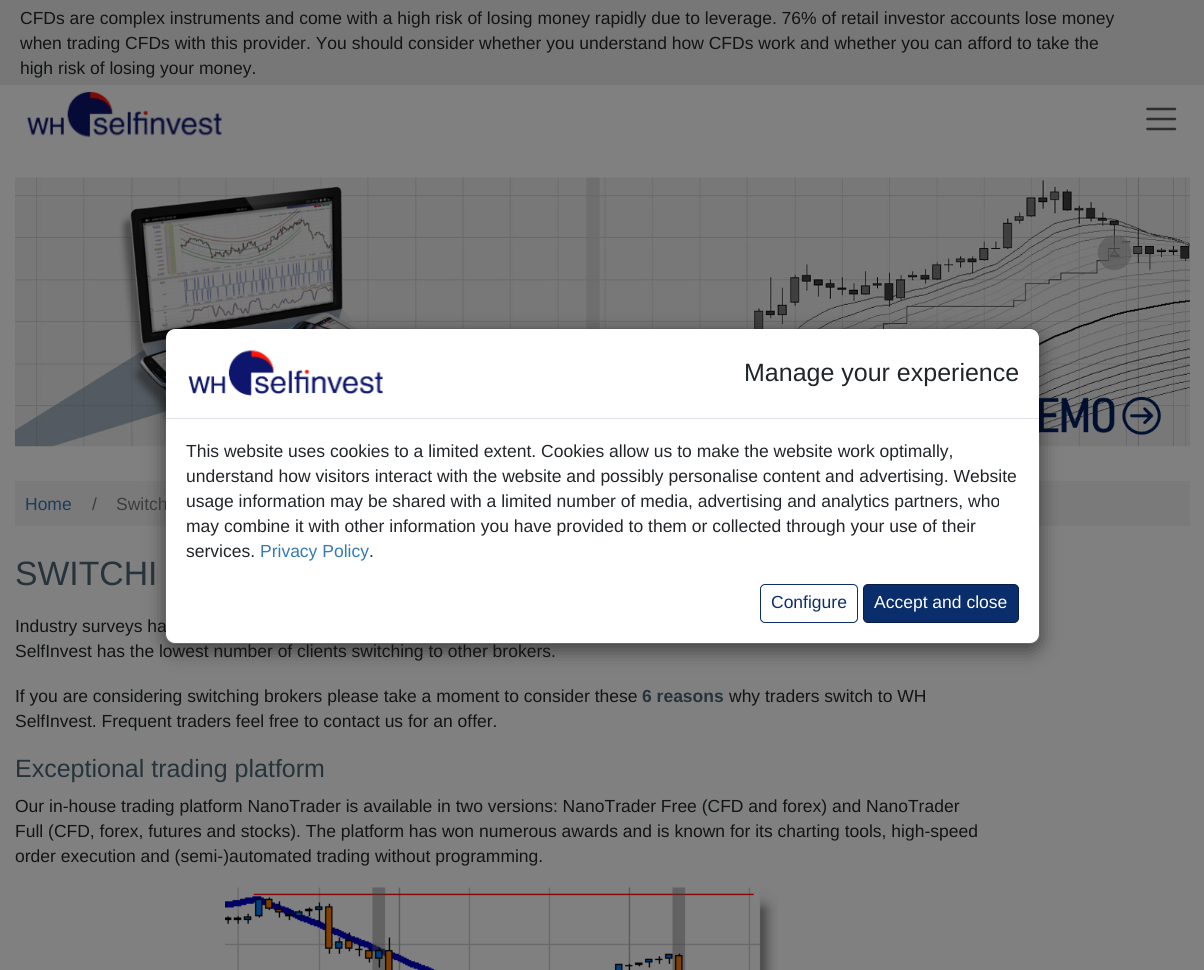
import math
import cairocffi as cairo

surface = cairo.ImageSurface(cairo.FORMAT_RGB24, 1204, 970)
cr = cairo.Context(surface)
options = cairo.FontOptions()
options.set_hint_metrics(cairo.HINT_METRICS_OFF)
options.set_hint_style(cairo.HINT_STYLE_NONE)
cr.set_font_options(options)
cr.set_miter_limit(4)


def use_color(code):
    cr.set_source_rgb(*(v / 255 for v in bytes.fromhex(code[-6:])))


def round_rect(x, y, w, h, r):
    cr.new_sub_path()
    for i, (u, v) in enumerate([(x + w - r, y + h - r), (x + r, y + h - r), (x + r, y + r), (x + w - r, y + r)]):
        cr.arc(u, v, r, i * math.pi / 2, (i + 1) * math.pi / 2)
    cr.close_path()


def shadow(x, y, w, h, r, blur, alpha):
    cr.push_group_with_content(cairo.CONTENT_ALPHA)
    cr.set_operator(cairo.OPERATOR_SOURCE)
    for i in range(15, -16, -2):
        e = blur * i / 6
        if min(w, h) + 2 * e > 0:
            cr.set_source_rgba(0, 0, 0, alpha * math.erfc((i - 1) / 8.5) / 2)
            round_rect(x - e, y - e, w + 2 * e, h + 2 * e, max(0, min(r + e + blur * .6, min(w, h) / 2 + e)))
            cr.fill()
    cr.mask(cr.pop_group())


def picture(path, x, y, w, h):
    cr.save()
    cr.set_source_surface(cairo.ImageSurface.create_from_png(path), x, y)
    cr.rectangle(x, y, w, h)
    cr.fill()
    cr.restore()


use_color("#808080")
cr.paint()
use_color("#777777")
cr.rectangle(0, 0, 1204, 85)
cr.fill()
cr.select_font_face("Liberation Sans")
cr.set_font_size(17.5)
use_color("#111315")
cr.move_to(20, 24)
cr.show_text("CFDs are complex instruments and come with a high risk of losing money rapidly due to leverage. 76% of retail investor accounts lose money")
cr.move_to(20, 49)
cr.show_text("when trading CFDs with this provider. You should consider whether you understand how CFDs work and whether you can afford to take the")
cr.move_to(20, 74)
cr.show_text("high risk of losing your money.")
picture("img1.png", 27, 91, 195, 47)
cr.new_path()
cr.move_to(1147.5, 109)
cr.line_to(1175, 109)
cr.move_to(1147.5, 119)
cr.line_to(1175, 119)
cr.move_to(1147.5, 129)
cr.line_to(1175, 129)
use_color("#2d2e30")
cr.set_line_width(2.5)
cr.set_line_cap(cairo.LINE_CAP_ROUND)
cr.stroke()
picture("img3.png", 15, 177, 1175, 270)
use_color("#7b7a7a")
cr.rectangle(15, 481, 1175, 45)
cr.fill()
cr.save()
cr.set_fill_rule(cairo.FILL_RULE_EVEN_ODD)
cr.new_path()
cr.move_to(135, 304)
cr.line_to(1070, 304)
cr.line_to(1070, 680)
cr.line_to(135, 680)
cr.close_path()
cr.move_to(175, 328)
cr.line_to(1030, 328)
cr.curve_to(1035.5, 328, 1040, 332.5, 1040, 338)
cr.line_to(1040, 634)
cr.curve_to(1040, 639.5, 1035.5, 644, 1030, 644)
cr.line_to(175, 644)
cr.curve_to(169.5, 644, 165, 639.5, 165, 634)
cr.line_to(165, 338)
cr.curve_to(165, 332.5, 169.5, 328, 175, 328)
cr.close_path()
cr.clip()
use_color("#000000")
shadow(165, 334, 875, 316, 10, 9.5, 0.5)
cr.restore()
use_color("#3c3c3c")
cr.move_to(116, 510)
cr.show_text("Switch")
use_color("#111315")
cr.move_to(15, 632)
cr.show_text("Industry surveys ha")
use_color("#ffffff")
round_rect(166, 329, 873, 314, 9)
cr.fill()
round_rect(165.5, 328.5, 874, 315, 9.5)
cr.set_source_rgba(0, 0, 0, 0.18)
cr.set_line_width(1)
cr.set_line_cap(cairo.LINE_CAP_BUTT)
cr.stroke()
use_color("#dee2e6")
cr.rectangle(166, 418, 873, 1)
cr.fill()
picture("img2.png", 188, 350, 195, 46)
cr.set_font_size(25)
use_color("#212529")
cr.move_to(744, 381)
cr.show_text("Manage your experience")
cr.set_font_size(17.5)
cr.move_to(186, 457)
cr.show_text("This website uses cookies to a limited extent. Cookies allow us to make the website work optimally,")
cr.move_to(186, 482)
cr.show_text("understand how visitors interact with the website and possibly personalise content and advertising. Website")
cr.move_to(186, 507)
cr.show_text("usage information may be shared with a limited number of media, advertising and analytics partners, who")
cr.move_to(186, 532)
cr.show_text("may combine it with other information you have provided to them or collected through your use of their")
cr.move_to(186, 557)
cr.show_text("services.")
use_color("#337ab7")
cr.move_to(260, 557)
cr.show_text("Privacy Policy")
use_color("#212529")
cr.move_to(369, 557)
cr.show_text(".")
round_rect(760.5, 584.5, 97, 38, 4.5)
use_color("#0e2d6d")
cr.stroke()
cr.move_to(771, 608)
cr.show_text("Configure")
use_color("#0a2d6c")
round_rect(863.5, 584.5, 155, 38, 4.5)
cr.fill_preserve()
use_color("#061d46")
cr.stroke()
use_color("#ffffff")
cr.move_to(874, 608)
cr.show_text("Accept and close")
use_color("#1a3d5c")
cr.move_to(25, 510)
cr.show_text("Home")
use_color("#3c3c3c")
cr.move_to(92, 510)
cr.show_text("/")
cr.set_font_size(33.75)
use_color("#26333a")
cr.move_to(15, 585)
cr.show_text("SWITCHI")
cr.set_font_size(17.5)
use_color("#111315")
cr.move_to(15, 657)
cr.show_text("SelfInvest has the lowest number of clients switching to other brokers.")
cr.move_to(15, 702)
cr.show_text("If you are considering switching brokers please take a moment to consider these")
cr.select_font_face("Liberation Sans", cairo.FONT_SLANT_NORMAL, cairo.FONT_WEIGHT_BOLD)
use_color("#26333a")
cr.move_to(642, 702)
cr.show_text("6 reasons")
cr.select_font_face("Liberation Sans")
use_color("#111315")
cr.move_to(729, 702)
cr.show_text("why traders switch to WH")
cr.move_to(15, 727)
cr.show_text("SelfInvest. Frequent traders feel free to contact us for an offer.")
cr.set_font_size(25)
use_color("#26333a")
cr.move_to(15, 777)
cr.show_text("Exceptional trading platform")
cr.set_font_size(17.5)
use_color("#111315")
cr.move_to(15, 812)
cr.show_text("Our in-house trading platform NanoTrader is available in two versions: NanoTrader Free (CFD and forex) and NanoTrader")
cr.move_to(15, 837)
cr.show_text("Full (CFD, forex, futures and stocks). The platform has won numerous awards and is known for its charting tools, high-speed")
cr.move_to(15, 862)
cr.show_text("order execution and (semi-)automated trading without programming.")
picture("img4.png", 225, 887, 553, 83)
surface.write_to_png("result.png")
